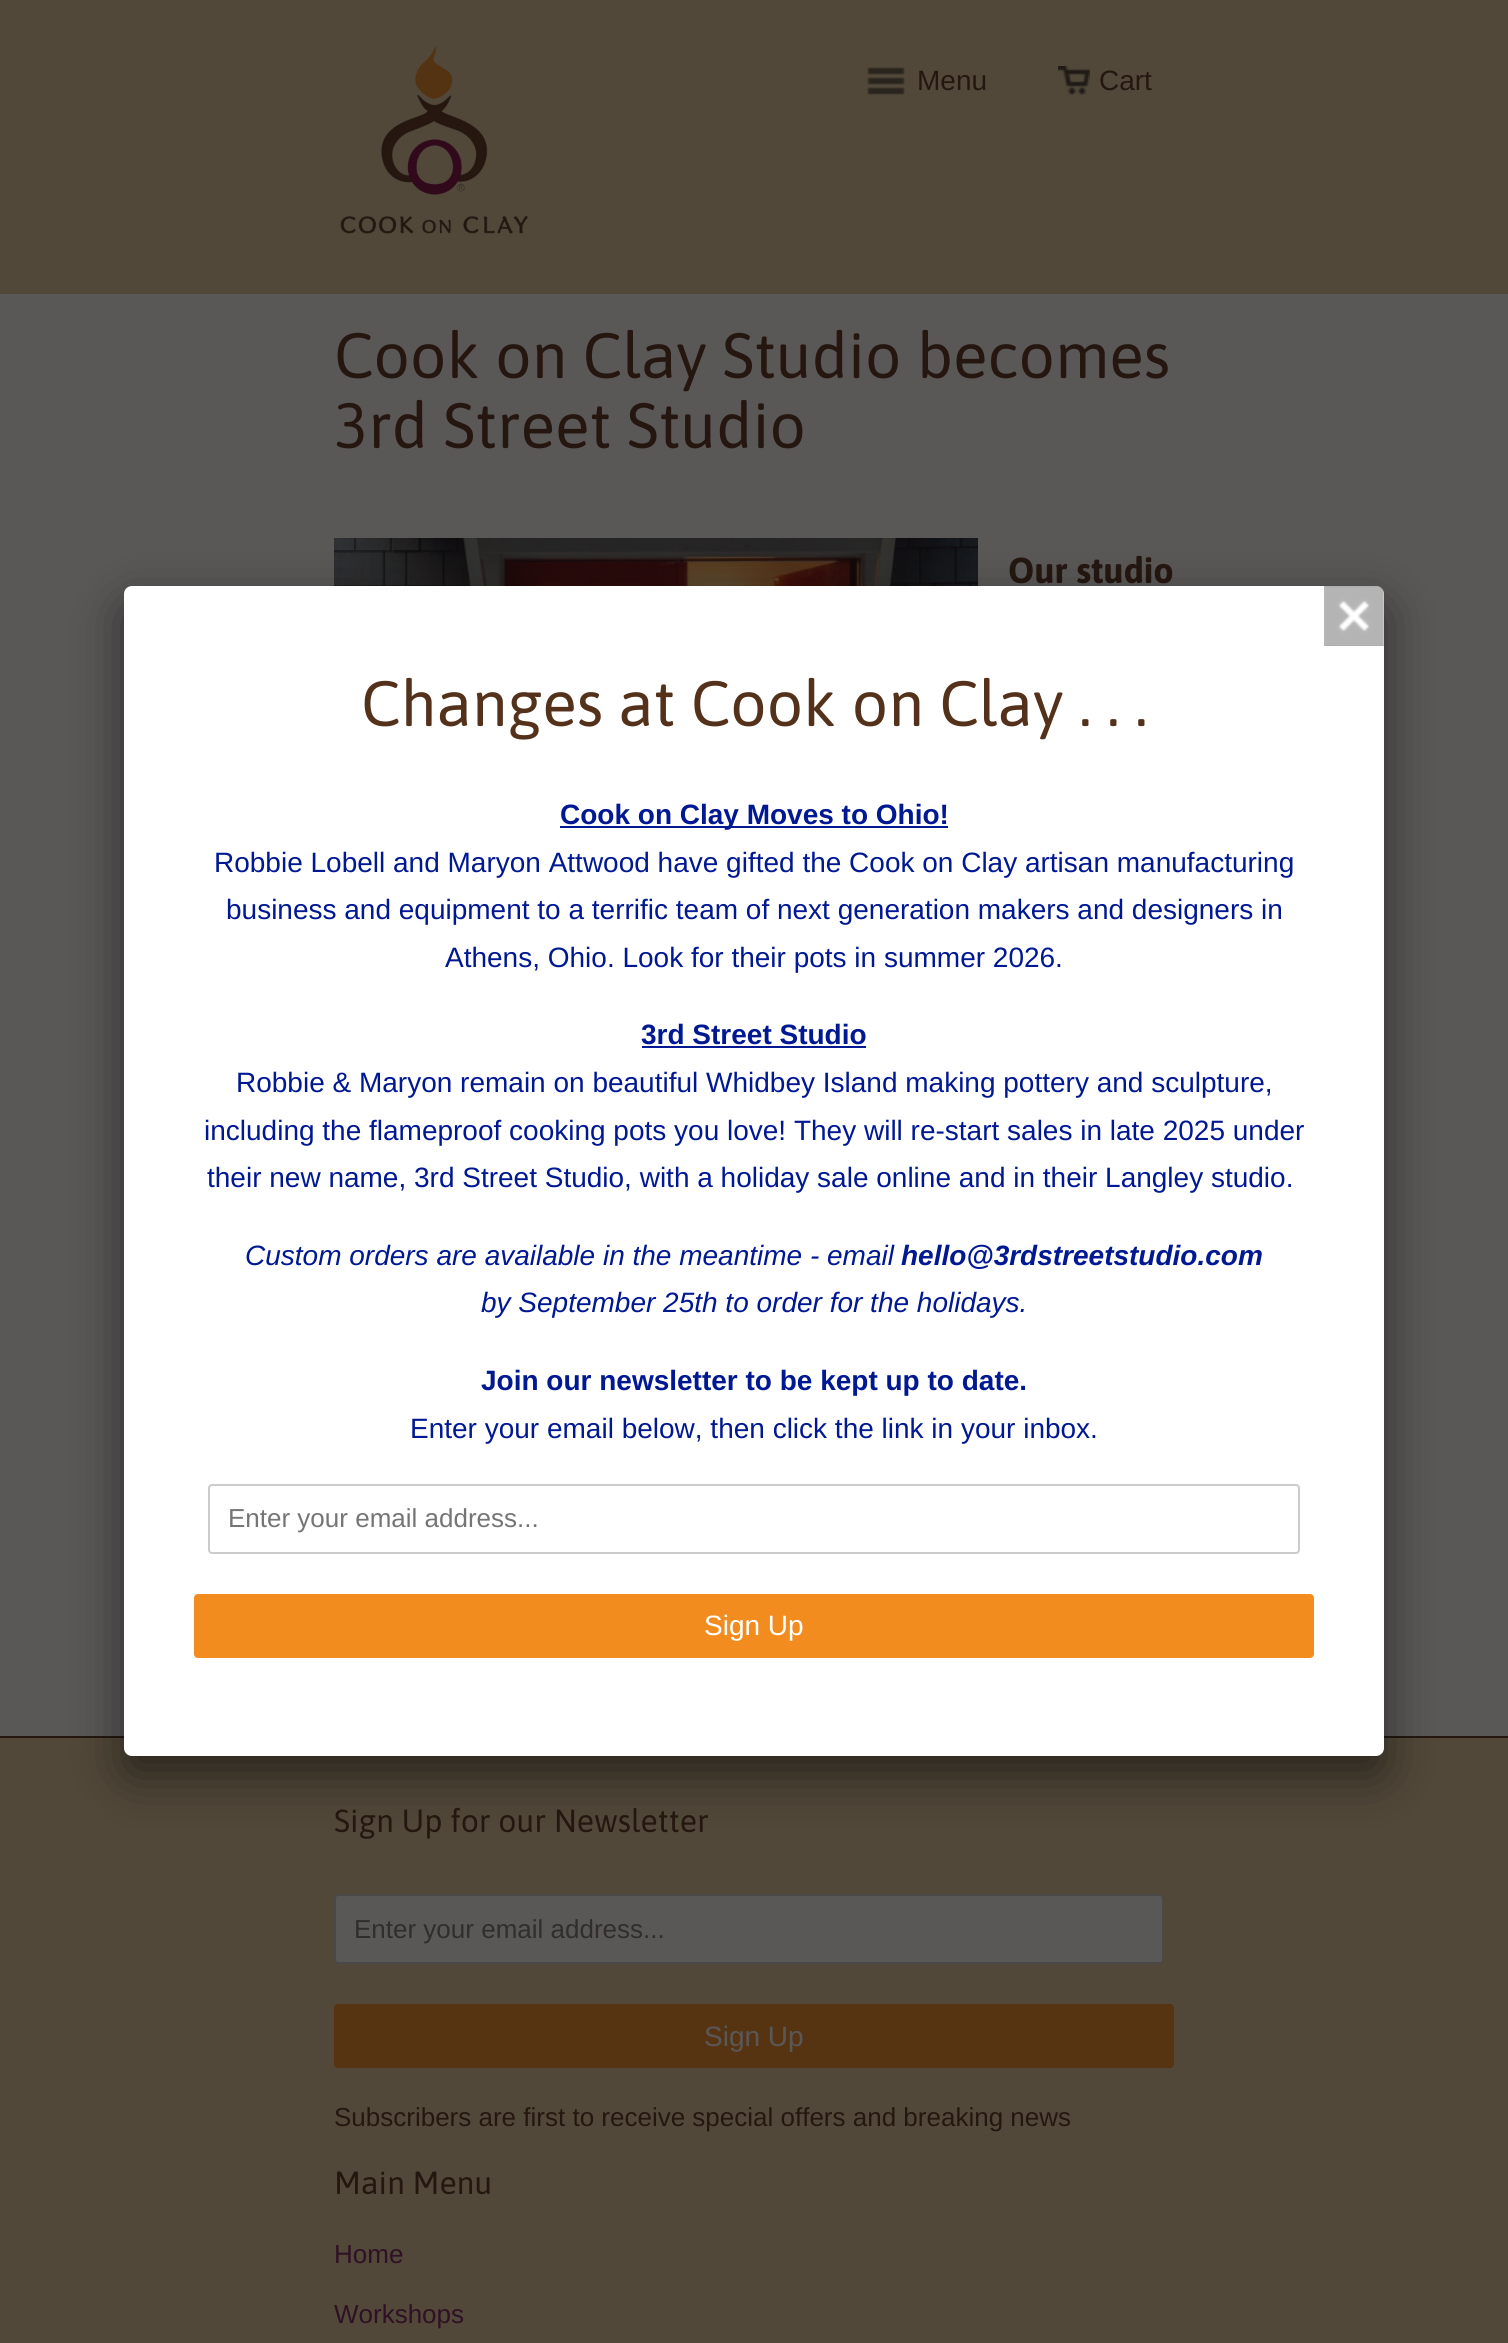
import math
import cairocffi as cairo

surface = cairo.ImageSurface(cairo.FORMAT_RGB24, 1508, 2343)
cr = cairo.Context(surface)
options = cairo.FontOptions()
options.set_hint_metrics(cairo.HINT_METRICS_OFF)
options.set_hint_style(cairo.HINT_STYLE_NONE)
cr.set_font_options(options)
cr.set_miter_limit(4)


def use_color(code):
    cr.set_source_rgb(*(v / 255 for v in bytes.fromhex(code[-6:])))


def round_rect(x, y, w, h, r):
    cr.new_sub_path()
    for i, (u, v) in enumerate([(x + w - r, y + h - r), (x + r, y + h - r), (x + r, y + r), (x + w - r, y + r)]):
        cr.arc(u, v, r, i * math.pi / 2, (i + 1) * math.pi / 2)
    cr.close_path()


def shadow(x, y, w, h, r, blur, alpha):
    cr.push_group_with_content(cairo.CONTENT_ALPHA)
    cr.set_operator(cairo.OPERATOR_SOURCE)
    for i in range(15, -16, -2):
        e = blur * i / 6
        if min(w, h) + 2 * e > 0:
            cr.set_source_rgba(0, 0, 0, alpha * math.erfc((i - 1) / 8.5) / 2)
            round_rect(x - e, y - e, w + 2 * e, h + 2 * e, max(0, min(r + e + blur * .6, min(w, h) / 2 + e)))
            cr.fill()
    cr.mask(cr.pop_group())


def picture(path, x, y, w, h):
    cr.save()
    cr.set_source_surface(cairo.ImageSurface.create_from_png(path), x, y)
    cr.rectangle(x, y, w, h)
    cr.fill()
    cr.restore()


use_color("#5a5757")
cr.paint()
use_color("#514839")
cr.rectangle(0, 0, 1508, 294)
cr.fill()
picture("img1.png", 340, 46, 188, 188)
picture("img2.png", 867, 67, 38, 28)
cr.select_font_face("Liberation Sans")
cr.set_font_size(28)
use_color("#251710")
cr.move_to(917, 90)
cr.show_text("Menu")
picture("img3.png", 1058, 66, 32, 29)
cr.move_to(1099, 90)
cr.show_text("Cart")
cr.select_font_face("Asap")
cr.set_font_size(64)
cr.move_to(334, 378)
cr.show_text("Cook on Clay Studio becomes")
cr.move_to(334, 448)
cr.show_text("3rd Street Studio")
picture("img4.png", 334, 538, 644, 48)
cr.select_font_face("Asap", cairo.FONT_SLANT_NORMAL, cairo.FONT_WEIGHT_BOLD)
cr.set_font_size(36)
cr.move_to(1008, 583)
cr.show_text("Our studio")
use_color("#514839")
cr.rectangle(0, 1738, 1508, 605)
cr.fill()
use_color("#251710")
cr.rectangle(0, 1736, 1508, 2)
cr.fill()
use_color("#000000")
shadow(124, 606, 1260, 1170, 8, 25, 0.5)
use_color("#ffffff")
round_rect(124, 586, 1260, 1170, 8)
cr.fill()
picture("img5.png", 1324, 586, 60, 60)
cr.select_font_face("Asap")
cr.set_font_size(64)
use_color("#54311a")
cr.move_to(361, 726)
cr.show_text("Changes at Cook on Clay . . .")
use_color("#011893")
cr.rectangle(560, 826, 388, 2)
cr.fill()
cr.select_font_face("Liberation Sans", cairo.FONT_SLANT_NORMAL, cairo.FONT_WEIGHT_BOLD)
cr.set_font_size(28)
cr.move_to(560, 824)
cr.show_text("Cook on Clay Moves to Ohio!")
cr.select_font_face("Liberation Sans")
cr.move_to(214, 872)
cr.show_text("Robbie Lobell and Maryon Attwood have gifted the Cook on Clay artisan manufacturing")
cr.move_to(226, 919)
cr.show_text("business and equipment to a terrific team of next generation makers and designers in")
cr.move_to(445, 967)
cr.show_text("Athens, Ohio. Look for their pots in summer 2026.")
cr.select_font_face("Liberation Sans", cairo.FONT_SLANT_NORMAL, cairo.FONT_WEIGHT_BOLD)
cr.move_to(641, 1044)
cr.show_text("3rd Street Studio")
cr.rectangle(642, 1046, 224, 2)
cr.fill()
cr.select_font_face("Liberation Sans")
cr.move_to(236, 1092)
cr.show_text("Robbie & Maryon remain on beautiful Whidbey Island making pottery and sculpture,")
cr.move_to(204, 1140)
cr.show_text("including the flameproof cooking pots you love! They will re-start sales in late 2025 under")
cr.move_to(207, 1187)
cr.show_text("their new name, 3rd Street Studio, with a holiday sale online and in their Langley studio.")
cr.select_font_face("Liberation Sans", cairo.FONT_SLANT_ITALIC)
cr.move_to(245, 1265)
cr.show_text("Custom orders are available in the meantime - email")
cr.select_font_face("Liberation Sans", cairo.FONT_SLANT_ITALIC, cairo.FONT_WEIGHT_BOLD)
cr.move_to(901, 1265)
cr.show_text("hello@3rdstreetstudio.com")
cr.select_font_face("Liberation Sans", cairo.FONT_SLANT_ITALIC)
cr.move_to(481, 1312)
cr.show_text("by September 25th to order for the holidays.")
cr.select_font_face("Liberation Sans", cairo.FONT_SLANT_NORMAL, cairo.FONT_WEIGHT_BOLD)
cr.move_to(481, 1390)
cr.show_text("Join our newsletter to be kept up to date.")
cr.select_font_face("Liberation Sans")
cr.move_to(410, 1438)
cr.show_text("Enter your email below, then click the link in your inbox.")
round_rect(209, 1485, 1090, 68, 3)
use_color("#cccccc")
cr.stroke()
cr.set_font_size(26)
use_color("#757575")
cr.move_to(228, 1527)
cr.show_text("Enter your email address...")
use_color("#f38c1e")
round_rect(194, 1594, 1120, 64, 4)
cr.fill()
cr.set_font_size(28)
use_color("#ffffff")
cr.move_to(704, 1635)
cr.show_text("Sign Up")
cr.select_font_face("Asap")
cr.set_font_size(32)
use_color("#251710")
cr.move_to(334, 1832)
cr.show_text("Sign Up for our Newsletter")
use_color("#5a5757")
round_rect(335, 1895, 828, 68, 3)
cr.fill_preserve()
use_color("#4a4848")
cr.stroke()
cr.select_font_face("Liberation Sans")
cr.set_font_size(26)
use_color("#2f2d2d")
cr.move_to(354, 1938)
cr.show_text("Enter your email address...")
use_color("#563412")
round_rect(334, 2004, 840, 64, 4)
cr.fill()
cr.set_font_size(28)
use_color("#5a5757")
cr.move_to(704, 2046)
cr.show_text("Sign Up")
cr.set_font_size(26)
use_color("#251710")
cr.move_to(334, 2126)
cr.show_text("Subscribers are first to receive special offers and breaking news")
cr.select_font_face("Asap")
cr.set_font_size(32)
cr.move_to(334, 2194)
cr.show_text("Main Menu")
cr.select_font_face("Liberation Sans")
cr.set_font_size(26)
use_color("#2f1024")
cr.move_to(334, 2263)
cr.show_text("Home")
cr.move_to(334, 2323)
cr.show_text("Workshops")
surface.write_to_png("result.png")
